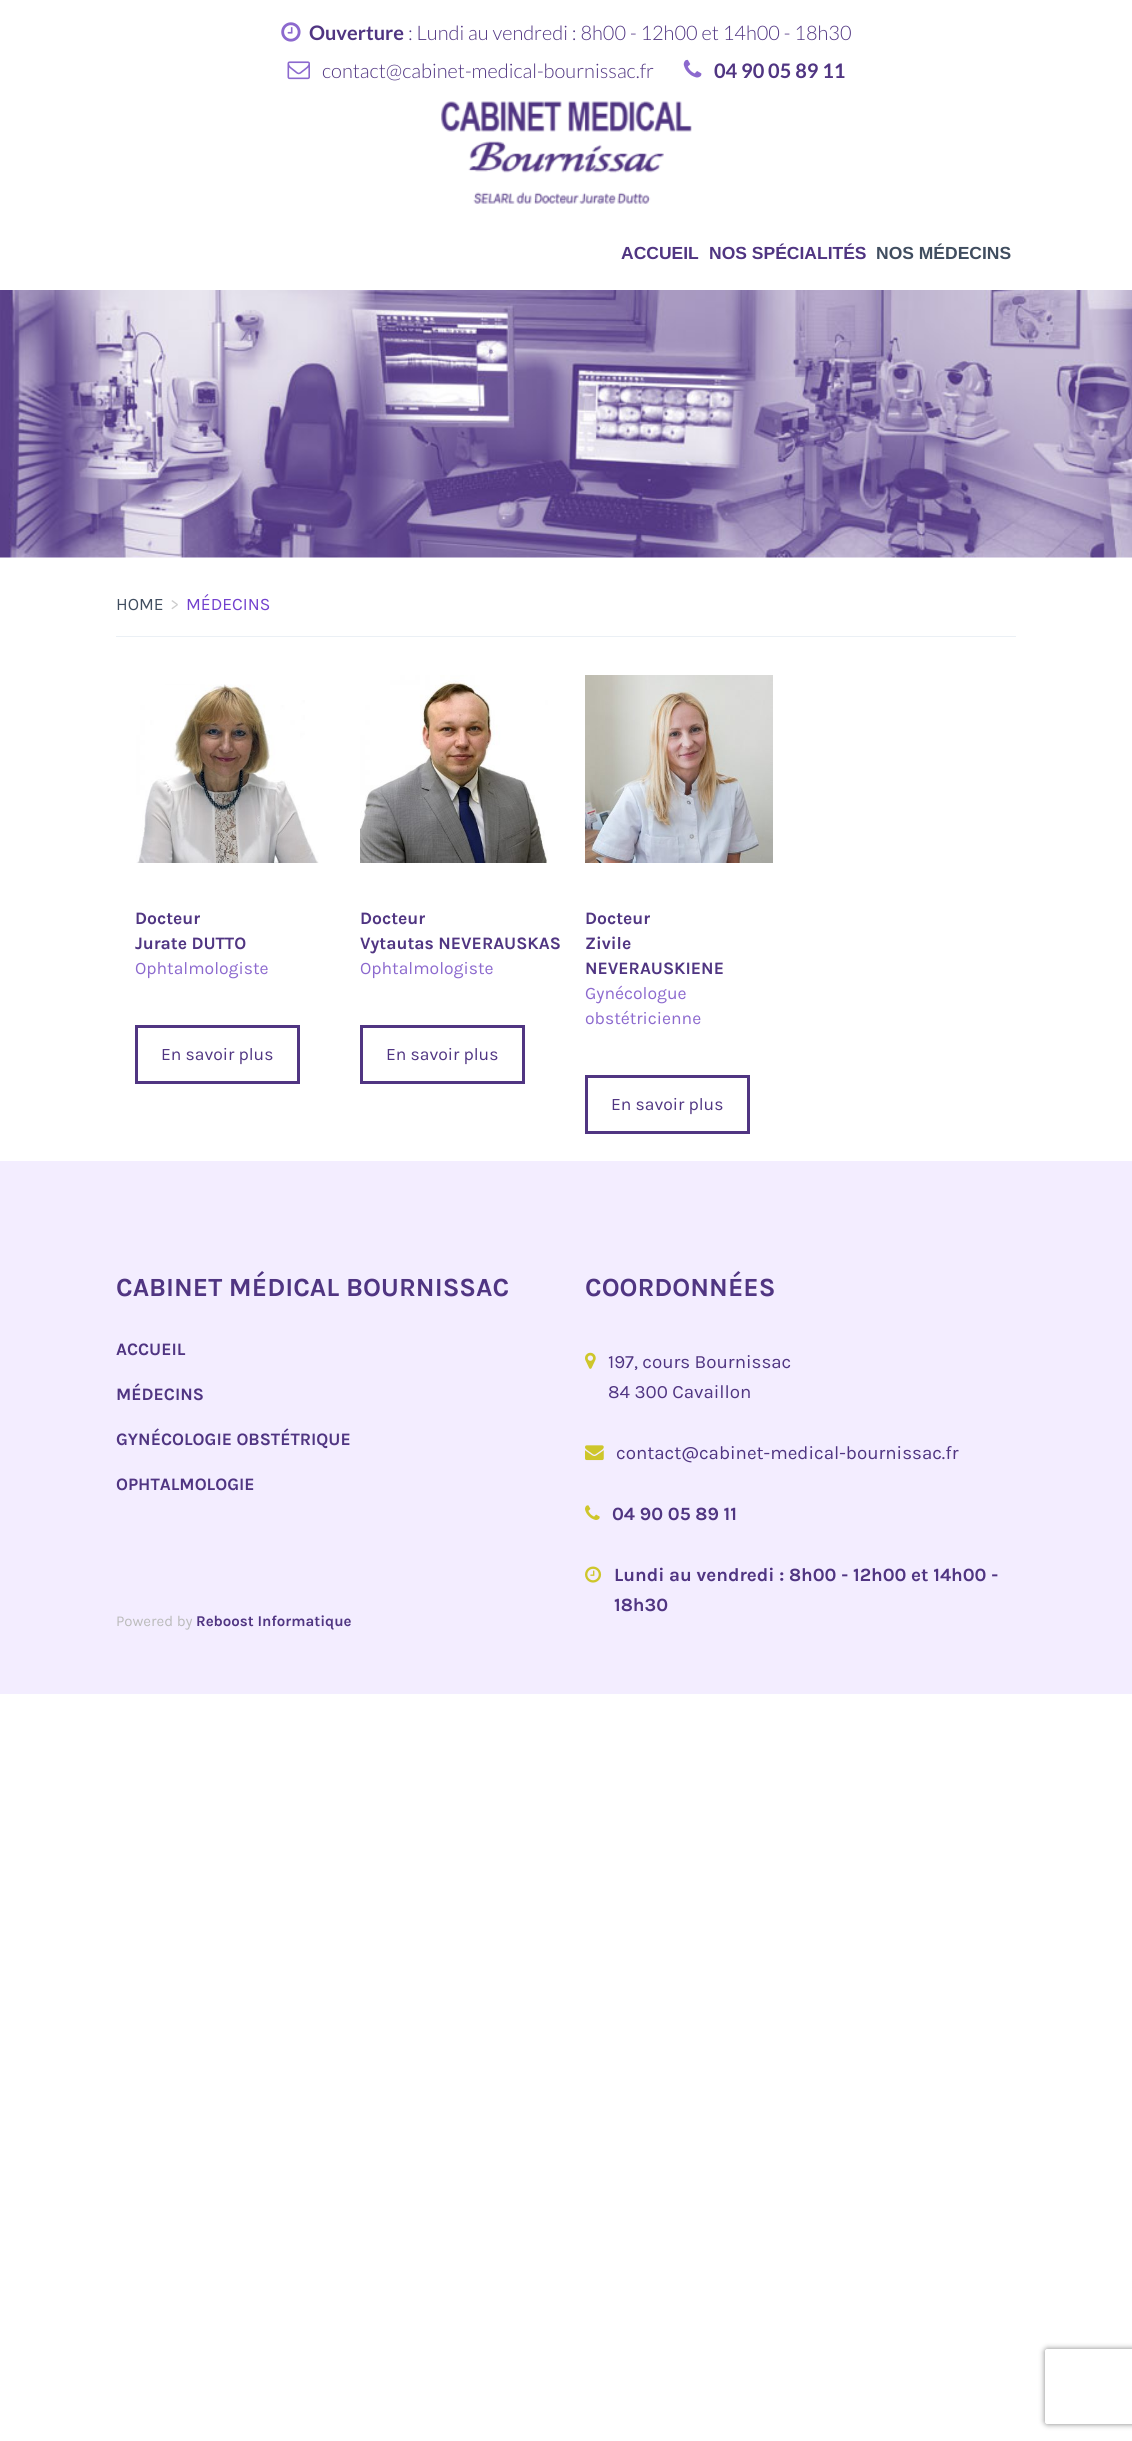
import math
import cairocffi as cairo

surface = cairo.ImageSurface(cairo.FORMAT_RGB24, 1132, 2441)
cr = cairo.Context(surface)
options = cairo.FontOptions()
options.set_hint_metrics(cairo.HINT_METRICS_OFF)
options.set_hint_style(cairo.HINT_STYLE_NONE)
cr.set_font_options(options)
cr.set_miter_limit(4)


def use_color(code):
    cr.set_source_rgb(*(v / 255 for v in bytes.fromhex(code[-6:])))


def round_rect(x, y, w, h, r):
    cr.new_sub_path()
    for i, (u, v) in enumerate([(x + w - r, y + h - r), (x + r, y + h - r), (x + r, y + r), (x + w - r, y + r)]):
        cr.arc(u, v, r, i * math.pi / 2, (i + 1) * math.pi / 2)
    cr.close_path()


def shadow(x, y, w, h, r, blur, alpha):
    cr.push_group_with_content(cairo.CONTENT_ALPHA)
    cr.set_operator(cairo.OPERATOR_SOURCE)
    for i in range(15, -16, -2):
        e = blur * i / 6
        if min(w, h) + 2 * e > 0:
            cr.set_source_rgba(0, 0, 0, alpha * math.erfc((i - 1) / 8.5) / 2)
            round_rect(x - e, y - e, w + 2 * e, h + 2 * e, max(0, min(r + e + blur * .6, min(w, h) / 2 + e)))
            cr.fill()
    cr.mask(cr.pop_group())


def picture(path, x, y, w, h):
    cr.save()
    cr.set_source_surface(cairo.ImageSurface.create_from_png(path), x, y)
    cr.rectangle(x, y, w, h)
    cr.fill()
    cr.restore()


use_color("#ffffff")
cr.paint()
picture("img1.png", 281, 22, 20, 20)
cr.select_font_face("Lato", cairo.FONT_SLANT_NORMAL, cairo.FONT_WEIGHT_BOLD)
cr.set_font_size(20)
use_color("#503582")
cr.move_to(309, 40)
cr.show_text("Ouverture")
cr.select_font_face("Lato Light")
cr.move_to(408, 40)
cr.show_text(": Lundi au vendredi : 8h00 - 12h00 et 14h00 - 18h30")
picture("img2.png", 287, 61, 23, 19)
cr.move_to(322, 78)
cr.show_text("contact@cabinet-medical-bournissac.fr")
picture("img3.png", 683, 59, 19, 19)
cr.select_font_face("Lato", cairo.FONT_SLANT_NORMAL, cairo.FONT_WEIGHT_BOLD)
cr.move_to(714, 78)
cr.show_text("04 90 05 89 11")
picture("img4.png", 441, 101, 251, 103)
cr.select_font_face("Liberation Sans", cairo.FONT_SLANT_NORMAL, cairo.FONT_WEIGHT_BOLD)
cr.set_font_size(17.5)
cr.move_to(621, 259)
cr.show_text("ACCUEIL")
cr.move_to(709, 259)
cr.show_text("NOS SPÉCIALITÉS")
use_color("#404d5f")
cr.move_to(876, 259)
cr.show_text("NOS MÉDECINS")
picture("img5.png", 0, 290, 1132, 268)
use_color("#ebf0f5")
cr.rectangle(116, 636, 900, 1)
cr.fill()
cr.select_font_face("Karla")
use_color("#404d5f")
cr.move_to(116, 610)
cr.show_text("HOME")
use_color("#cccccc")
cr.move_to(170, 610)
cr.show_text(">")
use_color("#7240ce")
cr.move_to(186, 610)
cr.show_text("MÉDECINS")
picture("img6.png", 136, 684, 183, 179)
cr.select_font_face("Karla", cairo.FONT_SLANT_NORMAL, cairo.FONT_WEIGHT_BOLD)
use_color("#503582")
cr.move_to(135, 924)
cr.show_text("Docteur")
cr.move_to(135, 949)
cr.show_text("Jurate DUTTO")
cr.select_font_face("Karla")
use_color("#8c69ce")
cr.move_to(135, 974)
cr.show_text("Ophtalmologiste")
cr.rectangle(136.5, 1026.5, 162, 56)
use_color("#503582")
cr.set_line_width(3)
cr.stroke()
cr.move_to(161, 1060)
cr.show_text("En savoir plus")
picture("img7.png", 360, 675, 188, 188)
cr.select_font_face("Karla", cairo.FONT_SLANT_NORMAL, cairo.FONT_WEIGHT_BOLD)
cr.move_to(360, 924)
cr.show_text("Docteur")
cr.move_to(360, 949)
cr.show_text("Vytautas NEVERAUSKAS")
cr.select_font_face("Karla")
use_color("#8c69ce")
cr.move_to(360, 974)
cr.show_text("Ophtalmologiste")
cr.rectangle(361.5, 1026.5, 162, 56)
use_color("#503582")
cr.stroke()
cr.move_to(386, 1060)
cr.show_text("En savoir plus")
picture("img8.png", 585, 675, 188, 188)
cr.select_font_face("Karla", cairo.FONT_SLANT_NORMAL, cairo.FONT_WEIGHT_BOLD)
cr.move_to(585, 924)
cr.show_text("Docteur")
cr.move_to(585, 949)
cr.show_text("Zivile")
cr.move_to(585, 974)
cr.show_text("NEVERAUSKIENE")
cr.select_font_face("Karla")
use_color("#8c69ce")
cr.move_to(585, 999)
cr.show_text("Gynécologue")
cr.move_to(585, 1024)
cr.show_text("obstétricienne")
cr.rectangle(586.5, 1076.5, 162, 56)
use_color("#503582")
cr.stroke()
cr.move_to(611, 1110)
cr.show_text("En savoir plus")
use_color("#f3edff")
cr.rectangle(0, 1161, 1132, 533)
cr.fill()
cr.select_font_face("Karla", cairo.FONT_SLANT_NORMAL, cairo.FONT_WEIGHT_BOLD)
cr.set_font_size(26.25)
use_color("#503582")
cr.move_to(116, 1296)
cr.show_text("CABINET MÉDICAL BOURNISSAC")
cr.set_font_size(17.5)
cr.move_to(116, 1355)
cr.show_text("ACCUEIL")
cr.move_to(116, 1400)
cr.show_text("MÉDECINS")
cr.move_to(116, 1445)
cr.show_text("GYNÉCOLOGIE OBSTÉTRIQUE")
cr.move_to(116, 1490)
cr.show_text("OPHTALMOLOGIE")
cr.select_font_face("Karla")
cr.set_font_size(15)
use_color("#bbbbbb")
cr.move_to(116, 1626)
cr.show_text("Powered by")
cr.select_font_face("Karla", cairo.FONT_SLANT_NORMAL, cairo.FONT_WEIGHT_BOLD)
use_color("#503582")
cr.move_to(196, 1626)
cr.show_text("Reboost Informatique")
cr.set_font_size(26.25)
cr.move_to(585, 1296)
cr.show_text("COORDONNÉES")
picture("img9.png", 585, 1352, 11, 17)
cr.select_font_face("Karla")
cr.set_font_size(18.75)
cr.move_to(608, 1368)
cr.show_text("197, cours Bournissac")
cr.move_to(608, 1398)
cr.show_text("84 300 Cavaillon")
picture("img10.png", 585, 1445, 19, 16)
cr.move_to(616, 1459)
cr.show_text("contact@cabinet-medical-bournissac.fr")
picture("img11.png", 585, 1505, 15, 15)
cr.select_font_face("Karla", cairo.FONT_SLANT_NORMAL, cairo.FONT_WEIGHT_BOLD)
cr.move_to(612, 1520)
cr.show_text("04 90 05 89 11")
picture("img12.png", 585, 1566, 17, 17)
cr.move_to(614, 1581)
cr.show_text("Lundi au vendredi : 8h00 - 12h00 et 14h00 -")
cr.move_to(614, 1611)
cr.show_text("18h30")
cr.save()
cr.set_fill_rule(cairo.FILL_RULE_EVEN_ODD)
cr.new_path()
cr.move_to(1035, 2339)
cr.line_to(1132, 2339)
cr.line_to(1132, 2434)
cr.line_to(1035, 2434)
cr.close_path()
cr.move_to(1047.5, 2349)
cr.line_to(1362.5, 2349)
cr.curve_to(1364, 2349, 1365, 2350, 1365, 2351.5)
cr.line_to(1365, 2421.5)
cr.curve_to(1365, 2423, 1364, 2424, 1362.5, 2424)
cr.line_to(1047.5, 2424)
cr.curve_to(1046, 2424, 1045, 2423, 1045, 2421.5)
cr.line_to(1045, 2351.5)
cr.curve_to(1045, 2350, 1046, 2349, 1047.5, 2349)
cr.close_path()
cr.clip()
use_color("#808080")
shadow(1045, 2349, 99, 75, 2.5, 3, 1)
cr.restore()
surface.write_to_png("result.png")
